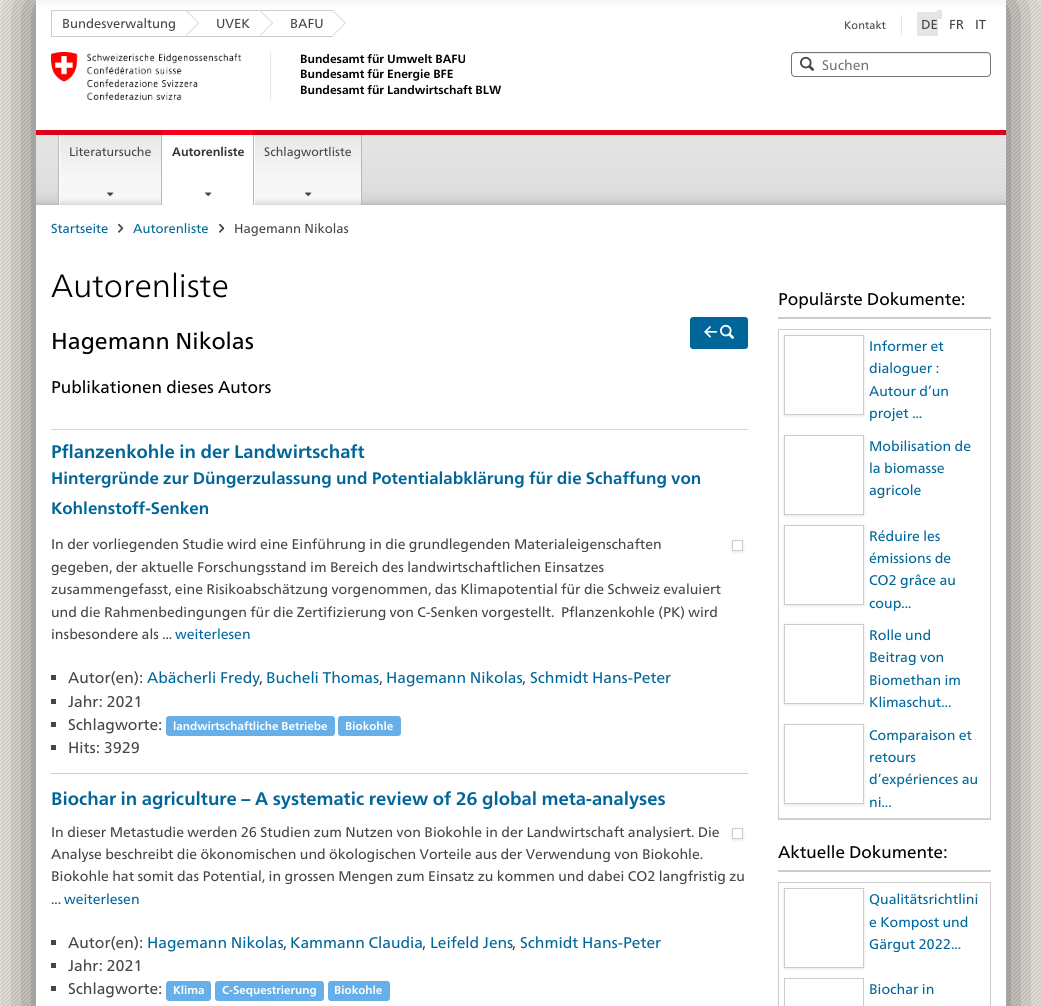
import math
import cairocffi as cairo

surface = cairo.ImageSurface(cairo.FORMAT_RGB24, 1041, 1006)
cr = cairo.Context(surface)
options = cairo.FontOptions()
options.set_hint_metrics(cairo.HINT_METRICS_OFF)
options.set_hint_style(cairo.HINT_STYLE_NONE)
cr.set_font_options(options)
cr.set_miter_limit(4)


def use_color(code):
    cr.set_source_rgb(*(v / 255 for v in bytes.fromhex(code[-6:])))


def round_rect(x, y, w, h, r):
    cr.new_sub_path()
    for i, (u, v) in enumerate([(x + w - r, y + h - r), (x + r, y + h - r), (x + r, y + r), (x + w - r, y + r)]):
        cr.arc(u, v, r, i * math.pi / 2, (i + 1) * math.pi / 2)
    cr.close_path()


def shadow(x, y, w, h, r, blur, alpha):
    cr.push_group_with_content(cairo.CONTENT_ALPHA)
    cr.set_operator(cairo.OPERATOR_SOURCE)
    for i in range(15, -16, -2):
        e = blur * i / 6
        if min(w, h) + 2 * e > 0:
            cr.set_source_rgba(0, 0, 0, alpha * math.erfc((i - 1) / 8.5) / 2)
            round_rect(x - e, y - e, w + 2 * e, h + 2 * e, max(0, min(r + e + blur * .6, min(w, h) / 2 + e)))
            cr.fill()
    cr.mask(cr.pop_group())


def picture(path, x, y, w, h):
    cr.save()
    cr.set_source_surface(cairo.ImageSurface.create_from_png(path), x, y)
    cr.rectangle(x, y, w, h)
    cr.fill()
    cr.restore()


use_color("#ffffff")
cr.paint()
picture("img1.png", 0, 0, 1041, 1006)
use_color("#000000")
shadow(36, 0, 970, 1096, 0, 30, 0.6)
use_color("#ffffff")
cr.rectangle(36, 205, 970, 801)
cr.fill()
gradient = cairo.LinearGradient(521, 0, 521, 130)
gradient.add_color_stop_rgba(0, 0.961, 0.961, 0.961, 1)
gradient.add_color_stop_rgba(0.07, 1, 1, 1, 1)
gradient.add_color_stop_rgba(1, 1, 1, 1, 1)
cr.set_source(gradient)
cr.rectangle(36, 0, 970, 130)
cr.fill()
use_color("#cccccc")
cr.rectangle(51, 10, 135, 1)
cr.fill()
cr.rectangle(51, 36, 282, 1)
cr.fill()
cr.rectangle(51, 10, 1, 27)
cr.fill()
cr.new_path()
cr.move_to(186, 36)
cr.line_to(186, 10)
cr.line_to(199, 23)
cr.close_path()
cr.fill()
use_color("#ffffff")
cr.new_path()
cr.move_to(185, 36)
cr.line_to(185, 10)
cr.line_to(198, 23)
cr.close_path()
cr.fill()
cr.select_font_face("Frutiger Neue")
cr.set_font_size(13)
use_color("#454545")
cr.move_to(62, 28)
cr.show_text("Bundesverwaltung")
use_color("#cccccc")
cr.rectangle(186, 10, 74, 1)
cr.fill()
cr.new_path()
cr.move_to(260, 36)
cr.line_to(260, 10)
cr.line_to(273, 23)
cr.close_path()
cr.fill()
use_color("#ffffff")
cr.new_path()
cr.move_to(259, 36)
cr.line_to(259, 10)
cr.line_to(272, 23)
cr.close_path()
cr.fill()
use_color("#454545")
cr.move_to(216, 28)
cr.show_text("UVEK")
use_color("#cccccc")
cr.rectangle(260, 10, 73, 1)
cr.fill()
cr.new_path()
cr.move_to(333, 36)
cr.line_to(333, 10)
cr.line_to(346, 23)
cr.close_path()
cr.fill()
use_color("#ffffff")
cr.new_path()
cr.move_to(332, 36)
cr.line_to(332, 10)
cr.line_to(345, 23)
cr.close_path()
cr.fill()
use_color("#454545")
cr.move_to(290, 28)
cr.show_text("BAFU")
cr.set_font_size(11)
cr.move_to(844, 29)
cr.show_text("Kontakt")
use_color("#e5e5e5")
cr.rectangle(901, 15, 1, 20)
cr.fill()
cr.rectangle(917, 12, 21, 24)
cr.fill()
cr.set_font_size(13)
use_color("#454545")
cr.move_to(921, 29)
cr.show_text("DE")
use_color("#e5e5e5")
cr.rectangle(937, 10, 5, 9)
cr.fill()
use_color("#454545")
cr.move_to(949, 29)
cr.show_text("FR")
cr.move_to(975, 29)
cr.show_text("IT")
use_color("#e5e5e5")
cr.rectangle(270, 52, 1, 48)
cr.fill()
picture("img2.png", 51, 52, 191, 48)
cr.select_font_face("Frutiger Neue", cairo.FONT_SLANT_NORMAL, cairo.FONT_WEIGHT_BOLD)
cr.set_font_size(11.9)
use_color("#000000")
cr.move_to(300, 63)
cr.show_text("Bundesamt für Umwelt BAFU")
cr.move_to(300, 78)
cr.show_text("Bundesamt für Energie BFE")
cr.move_to(300, 94)
cr.show_text("Bundesamt für Landwirtschaft BLW")
use_color("#ececec")
cr.new_path()
cr.move_to(795, 54)
cr.line_to(987, 54)
cr.curve_to(989, 54, 990, 55, 990, 57)
cr.curve_to(990, 55, 989, 53, 987, 53)
cr.line_to(795, 53)
cr.curve_to(793, 53, 792, 55, 792, 57)
cr.curve_to(792, 55, 793, 54, 795, 54)
cr.close_path()
cr.fill()
round_rect(791.5, 52.5, 199, 24, 3.5)
use_color("#757575")
cr.set_line_width(1)
cr.stroke()
picture("img3.png", 800, 56, 14, 15)
cr.select_font_face("Frutiger Neue")
cr.set_font_size(14)
cr.move_to(822, 70)
cr.show_text("Suchen")
gradient = cairo.LinearGradient(521, 135, 521, 205)
gradient.add_color_stop_rgba(0, 0.894, 0.894, 0.894, 1)
gradient.add_color_stop_rgba(0.39, 0.886, 0.886, 0.886, 1)
gradient.add_color_stop_rgba(0.79, 0.867, 0.867, 0.867, 1)
gradient.add_color_stop_rgba(0.91, 0.835, 0.835, 0.835, 1)
gradient.add_color_stop_rgba(0.95, 0.812, 0.812, 0.812, 1)
gradient.add_color_stop_rgba(0.99, 0.745, 0.745, 0.745, 1)
cr.set_source(gradient)
cr.rectangle(36, 135, 970, 70)
cr.fill()
use_color("#dc0018")
cr.rectangle(36, 130, 970, 5)
cr.fill()
use_color("#b8b8b8")
cr.rectangle(58, 135, 1, 70)
cr.fill()
cr.rectangle(161, 135, 1, 70)
cr.fill()
use_color("#ffffff")
cr.rectangle(59, 135, 1, 70)
cr.fill()
gradient = cairo.LinearGradient(111, 135, 111, 205)
gradient.add_color_stop_rgba(0, 0.91, 0.91, 0.91, 1)
gradient.add_color_stop_rgba(0.61, 0.969, 0.969, 0.969, 1)
gradient.add_color_stop_rgba(0.89, 0.969, 0.969, 0.969, 1)
gradient.add_color_stop_rgba(0.91, 0.961, 0.961, 0.961, 1)
gradient.add_color_stop_rgba(0.95, 0.925, 0.925, 0.925, 1)
gradient.add_color_stop_rgba(1, 0.843, 0.843, 0.843, 1)
cr.set_source(gradient)
cr.rectangle(60, 135, 101, 70)
cr.fill()
cr.set_font_size(12.25)
use_color("#454545")
cr.move_to(69, 156)
cr.show_text("Literatursuche")
picture("img4.png", 107, 192, 7, 5)
use_color("#b8b8b8")
cr.rectangle(253, 135, 1, 70)
cr.fill()
use_color("#ffffff")
cr.rectangle(162, 135, 91, 70)
cr.fill()
use_color("#f7001d")
cr.rectangle(163, 130, 90, 5)
cr.fill()
cr.select_font_face("Frutiger Neue", cairo.FONT_SLANT_NORMAL, cairo.FONT_WEIGHT_BOLD)
use_color("#333333")
cr.move_to(172, 156)
cr.show_text("Autorenliste")
picture("img5.png", 205, 192, 7, 5)
use_color("#b8b8b8")
cr.rectangle(361, 135, 1, 70)
cr.fill()
use_color("#ffffff")
cr.rectangle(254, 135, 1, 70)
cr.fill()
gradient = cairo.LinearGradient(308, 135, 308, 205)
gradient.add_color_stop_rgba(0, 0.91, 0.91, 0.91, 1)
gradient.add_color_stop_rgba(0.61, 0.969, 0.969, 0.969, 1)
gradient.add_color_stop_rgba(0.89, 0.969, 0.969, 0.969, 1)
gradient.add_color_stop_rgba(0.91, 0.961, 0.961, 0.961, 1)
gradient.add_color_stop_rgba(0.95, 0.925, 0.925, 0.925, 1)
gradient.add_color_stop_rgba(1, 0.843, 0.843, 0.843, 1)
cr.set_source(gradient)
cr.rectangle(255, 135, 106, 70)
cr.fill()
cr.select_font_face("Frutiger Neue")
use_color("#454545")
cr.move_to(264, 156)
cr.show_text("Schlagwortliste")
picture("img4.png", 305, 192, 7, 5)
cr.set_font_size(13)
use_color("#006699")
cr.move_to(51, 233)
cr.show_text("Startseite")
picture("img6.png", 118, 223, 6, 10)
cr.move_to(133, 233)
cr.show_text("Autorenliste")
picture("img6.png", 219, 223, 6, 10)
use_color("#454545")
cr.move_to(234, 233)
cr.show_text("Hagemann Nikolas")
cr.select_font_face("Frutiger Neue Light")
cr.set_font_size(32.25)
use_color("#000000")
cr.move_to(51, 297)
cr.show_text("Autorenliste")
cr.select_font_face("Frutiger Neue")
cr.set_font_size(23)
cr.move_to(51, 349)
cr.show_text("Hagemann Nikolas")
use_color("#006699")
round_rect(690.5, 317.5, 57, 31, 2.5)
cr.fill_preserve()
cr.stroke()
picture("img7.png", 704, 326, 14, 12)
picture("img8.png", 720, 324, 14, 15)
cr.set_font_size(17)
use_color("#000000")
cr.move_to(51, 393)
cr.show_text("Publikationen dieses Autors")
use_color("#d5d5d5")
cr.rectangle(51, 429, 697, 1)
cr.fill()
use_color("#cccccc")
cr.rectangle(51, 773, 697, 1)
cr.fill()
cr.select_font_face("Frutiger Neue", cairo.FONT_SLANT_NORMAL, cairo.FONT_WEIGHT_BOLD)
cr.set_font_size(18.2)
use_color("#006699")
cr.move_to(51, 458)
cr.show_text("Pflanzenkohle in der Landwirtschaft")
cr.set_font_size(16.7)
cr.move_to(51, 484)
cr.show_text("Hintergründe zur Düngerzulassung und Potentialabklärung für die Schaffung von")
cr.move_to(51, 514)
cr.show_text("Kohlenstoff-Senken")
cr.select_font_face("Frutiger Neue")
cr.set_font_size(14)
use_color("#454545")
cr.move_to(51, 549)
cr.show_text("In der vorliegenden Studie wird eine Einführung in die grundlegenden Materialeigenschaften")
cr.save()
cr.set_fill_rule(cairo.FILL_RULE_EVEN_ODD)
cr.new_path()
cr.move_to(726, 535)
cr.line_to(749, 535)
cr.line_to(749, 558)
cr.line_to(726, 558)
cr.close_path()
cr.move_to(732, 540)
cr.line_to(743, 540)
cr.line_to(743, 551)
cr.line_to(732, 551)
cr.close_path()
cr.clip()
use_color("#000000")
shadow(732, 541, 11, 11, 0, 1.5, 0.1)
cr.restore()
cr.rectangle(732.5, 540.5, 10, 10)
use_color("#cccccc")
cr.stroke()
use_color("#454545")
cr.move_to(51, 572)
cr.show_text("gegeben, der aktuelle Forschungsstand im Bereich des landwirtschaftlichen Einsatzes")
cr.move_to(51, 594)
cr.show_text("zusammengefasst, eine Risikoabschätzung vorgenommen, das Klimapotential für die Schweiz evaluiert")
cr.move_to(51, 617)
cr.show_text("und die Rahmenbedingungen für die Zertifizierung von C-Senken vorgestellt.  Pflanzenkohle (PK) wird")
cr.move_to(51, 639)
cr.show_text("insbesondere als ...")
use_color("#006699")
cr.move_to(175, 639)
cr.show_text("weiterlesen")
use_color("#454545")
cr.rectangle(51, 675, 5, 5)
cr.fill()
cr.set_font_size(15.5)
cr.move_to(68, 683)
cr.show_text("Autor(en):")
use_color("#006699")
cr.move_to(147, 683)
cr.show_text("Abächerli Fredy")
cr.move_to(266, 683)
cr.show_text("Bucheli Thomas")
cr.move_to(386, 683)
cr.show_text("Hagemann Nikolas")
cr.move_to(530, 683)
cr.show_text("Schmidt Hans-Peter")
use_color("#454545")
cr.move_to(259, 683)
cr.show_text(",")
cr.move_to(379, 683)
cr.show_text(",")
cr.move_to(522, 683)
cr.show_text(",")
cr.rectangle(51, 699, 5, 5)
cr.fill()
cr.move_to(68, 707)
cr.show_text("Jahr: 2021")
cr.rectangle(51, 722, 5, 5)
cr.fill()
cr.move_to(68, 730)
cr.show_text("Schlagworte:")
use_color("#66afe9")
round_rect(166, 716, 169, 20, 3)
cr.fill()
cr.select_font_face("Frutiger Neue", cairo.FONT_SLANT_NORMAL, cairo.FONT_WEIGHT_BOLD)
cr.set_font_size(11.5)
use_color("#ffffff")
cr.move_to(173, 730)
cr.show_text("landwirtschaftliche Betriebe")
use_color("#66afe9")
round_rect(338, 716, 63, 20, 3)
cr.fill()
use_color("#ffffff")
cr.move_to(345, 730)
cr.show_text("Biokohle")
use_color("#454545")
cr.rectangle(51, 745, 5, 5)
cr.fill()
cr.select_font_face("Frutiger Neue")
cr.set_font_size(15.5)
cr.move_to(68, 753)
cr.show_text("Hits: 3929")
cr.select_font_face("Frutiger Neue", cairo.FONT_SLANT_NORMAL, cairo.FONT_WEIGHT_BOLD)
cr.set_font_size(18.2)
use_color("#006699")
cr.move_to(51, 805)
cr.show_text("Biochar in agriculture – A systematic review of 26 global meta-analyses")
cr.select_font_face("Frutiger Neue")
cr.set_font_size(14)
use_color("#454545")
cr.move_to(51, 837)
cr.show_text("In dieser Metastudie werden 26 Studien zum Nutzen von Biokohle in der Landwirtschaft analysiert. Die")
cr.save()
cr.set_fill_rule(cairo.FILL_RULE_EVEN_ODD)
cr.new_path()
cr.move_to(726, 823)
cr.line_to(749, 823)
cr.line_to(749, 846)
cr.line_to(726, 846)
cr.close_path()
cr.move_to(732, 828)
cr.line_to(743, 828)
cr.line_to(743, 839)
cr.line_to(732, 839)
cr.close_path()
cr.clip()
use_color("#000000")
shadow(732, 829, 11, 11, 0, 1.5, 0.1)
cr.restore()
cr.rectangle(732.5, 828.5, 10, 10)
use_color("#cccccc")
cr.stroke()
use_color("#454545")
cr.move_to(51, 859)
cr.show_text("Analyse beschreibt die ökonomischen und ökologischen Vorteile aus der Verwendung von Biokohle.")
cr.move_to(51, 881)
cr.show_text("Biokohle hat somit das Potential, in grossen Mengen zum Einsatz zu kommen und dabei CO2 langfristig zu")
cr.move_to(51, 904)
cr.show_text("...")
use_color("#006699")
cr.move_to(64, 904)
cr.show_text("weiterlesen")
use_color("#454545")
cr.rectangle(51, 940, 5, 5)
cr.fill()
cr.set_font_size(15.5)
cr.move_to(68, 948)
cr.show_text("Autor(en):")
use_color("#006699")
cr.move_to(147, 948)
cr.show_text("Hagemann Nikolas")
cr.move_to(290, 948)
cr.show_text("Kammann Claudia")
cr.move_to(430, 948)
cr.show_text("Leifeld Jens")
cr.move_to(520, 948)
cr.show_text("Schmidt Hans-Peter")
use_color("#454545")
cr.move_to(283, 948)
cr.show_text(",")
cr.move_to(422, 948)
cr.show_text(",")
cr.move_to(512, 948)
cr.show_text(",")
cr.rectangle(51, 963, 5, 5)
cr.fill()
cr.move_to(68, 971)
cr.show_text("Jahr: 2021")
cr.rectangle(51, 986, 5, 5)
cr.fill()
cr.move_to(68, 994)
cr.show_text("Schlagworte:")
use_color("#66afe9")
round_rect(166, 981, 45, 20, 3)
cr.fill()
cr.select_font_face("Frutiger Neue", cairo.FONT_SLANT_NORMAL, cairo.FONT_WEIGHT_BOLD)
cr.set_font_size(11.5)
use_color("#ffffff")
cr.move_to(173, 994)
cr.show_text("Klima")
use_color("#66afe9")
round_rect(215, 981, 109, 20, 3)
cr.fill()
use_color("#ffffff")
cr.move_to(222, 994)
cr.show_text("C-Sequestrierung")
use_color("#66afe9")
round_rect(328, 981, 62, 20, 3)
cr.fill()
use_color("#ffffff")
cr.move_to(334, 994)
cr.show_text("Biokohle")
use_color("#cccccc")
cr.rectangle(778, 317, 213, 2)
cr.fill()
cr.select_font_face("Frutiger Neue")
cr.set_font_size(17)
use_color("#000000")
cr.move_to(778, 305)
cr.show_text("Populärste Dokumente:")
cr.rectangle(778.5, 329.5, 212, 490)
use_color("#cccccc")
cr.stroke()
cr.save()
cr.set_fill_rule(cairo.FILL_RULE_EVEN_ODD)
cr.new_path()
cr.move_to(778, 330)
cr.line_to(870, 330)
cr.line_to(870, 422)
cr.line_to(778, 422)
cr.close_path()
cr.move_to(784, 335)
cr.line_to(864, 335)
cr.line_to(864, 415)
cr.line_to(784, 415)
cr.close_path()
cr.clip()
use_color("#000000")
shadow(784, 336, 80, 80, 0, 1.5, 0.1)
cr.restore()
cr.rectangle(784.5, 335.5, 79, 79)
cr.stroke()
cr.set_font_size(14)
use_color("#006699")
cr.move_to(869, 351)
cr.show_text("Informer et")
cr.move_to(869, 373)
cr.show_text("dialoguer :")
cr.move_to(869, 396)
cr.show_text("Autour d’un")
cr.move_to(869, 418)
cr.show_text("projet ...")
cr.save()
cr.set_fill_rule(cairo.FILL_RULE_EVEN_ODD)
cr.new_path()
cr.move_to(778, 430)
cr.line_to(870, 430)
cr.line_to(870, 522)
cr.line_to(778, 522)
cr.close_path()
cr.move_to(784, 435)
cr.line_to(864, 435)
cr.line_to(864, 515)
cr.line_to(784, 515)
cr.close_path()
cr.clip()
use_color("#000000")
shadow(784, 436, 80, 80, 0, 1.5, 0.1)
cr.restore()
cr.rectangle(784.5, 435.5, 79, 79)
use_color("#cccccc")
cr.stroke()
use_color("#006699")
cr.move_to(869, 451)
cr.show_text("Mobilisation de")
cr.move_to(869, 473)
cr.show_text("la biomasse")
cr.move_to(869, 495)
cr.show_text("agricole")
cr.save()
cr.set_fill_rule(cairo.FILL_RULE_EVEN_ODD)
cr.new_path()
cr.move_to(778, 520)
cr.line_to(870, 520)
cr.line_to(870, 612)
cr.line_to(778, 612)
cr.close_path()
cr.move_to(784, 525)
cr.line_to(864, 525)
cr.line_to(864, 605)
cr.line_to(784, 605)
cr.close_path()
cr.clip()
use_color("#000000")
shadow(784, 526, 80, 80, 0, 1.5, 0.1)
cr.restore()
cr.rectangle(784.5, 525.5, 79, 79)
use_color("#cccccc")
cr.stroke()
use_color("#006699")
cr.move_to(869, 541)
cr.show_text("Réduire les")
cr.move_to(869, 563)
cr.show_text("émissions de")
cr.move_to(869, 585)
cr.show_text("CO2 grâce au")
cr.move_to(869, 608)
cr.show_text("coup...")
cr.save()
cr.set_fill_rule(cairo.FILL_RULE_EVEN_ODD)
cr.new_path()
cr.move_to(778, 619)
cr.line_to(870, 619)
cr.line_to(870, 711)
cr.line_to(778, 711)
cr.close_path()
cr.move_to(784, 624)
cr.line_to(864, 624)
cr.line_to(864, 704)
cr.line_to(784, 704)
cr.close_path()
cr.clip()
use_color("#000000")
shadow(784, 625, 80, 80, 0, 1.5, 0.1)
cr.restore()
cr.rectangle(784.5, 624.5, 79, 79)
use_color("#cccccc")
cr.stroke()
use_color("#006699")
cr.move_to(869, 640)
cr.show_text("Rolle und")
cr.move_to(869, 662)
cr.show_text("Beitrag von")
cr.move_to(869, 685)
cr.show_text("Biomethan im")
cr.move_to(869, 707)
cr.show_text("Klimaschut...")
cr.save()
cr.set_fill_rule(cairo.FILL_RULE_EVEN_ODD)
cr.new_path()
cr.move_to(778, 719)
cr.line_to(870, 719)
cr.line_to(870, 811)
cr.line_to(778, 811)
cr.close_path()
cr.move_to(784, 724)
cr.line_to(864, 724)
cr.line_to(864, 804)
cr.line_to(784, 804)
cr.close_path()
cr.clip()
use_color("#000000")
shadow(784, 725, 80, 80, 0, 1.5, 0.1)
cr.restore()
cr.rectangle(784.5, 724.5, 79, 79)
use_color("#cccccc")
cr.stroke()
use_color("#006699")
cr.move_to(869, 740)
cr.show_text("Comparaison et")
cr.move_to(869, 762)
cr.show_text("retours")
cr.move_to(869, 784)
cr.show_text("d’expériences au")
cr.move_to(869, 807)
cr.show_text("ni...")
use_color("#d5d5d5")
cr.rectangle(779, 818, 211, 1)
cr.fill()
use_color("#cccccc")
cr.rectangle(778, 870, 213, 2)
cr.fill()
cr.set_font_size(17)
use_color("#000000")
cr.move_to(778, 858)
cr.show_text("Aktuelle Dokumente:")
cr.rectangle(778.5, 882.5, 212, 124)
use_color("#cccccc")
cr.stroke()
cr.save()
cr.set_fill_rule(cairo.FILL_RULE_EVEN_ODD)
cr.new_path()
cr.move_to(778, 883)
cr.line_to(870, 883)
cr.line_to(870, 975)
cr.line_to(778, 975)
cr.close_path()
cr.move_to(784, 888)
cr.line_to(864, 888)
cr.line_to(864, 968)
cr.line_to(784, 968)
cr.close_path()
cr.clip()
use_color("#000000")
shadow(784, 889, 80, 80, 0, 1.5, 0.1)
cr.restore()
cr.rectangle(784.5, 888.5, 79, 79)
cr.stroke()
cr.set_font_size(14)
use_color("#006699")
cr.move_to(869, 904)
cr.show_text("Qualitätsrichtlini")
cr.move_to(869, 927)
cr.show_text("e Kompost und")
cr.move_to(869, 949)
cr.show_text("Gärgut 2022...")
cr.rectangle(784.5, 978.5, 79, 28)
use_color("#cccccc")
cr.stroke()
use_color("#006699")
cr.move_to(869, 994)
cr.show_text("Biochar in")
surface.write_to_png("result.png")
